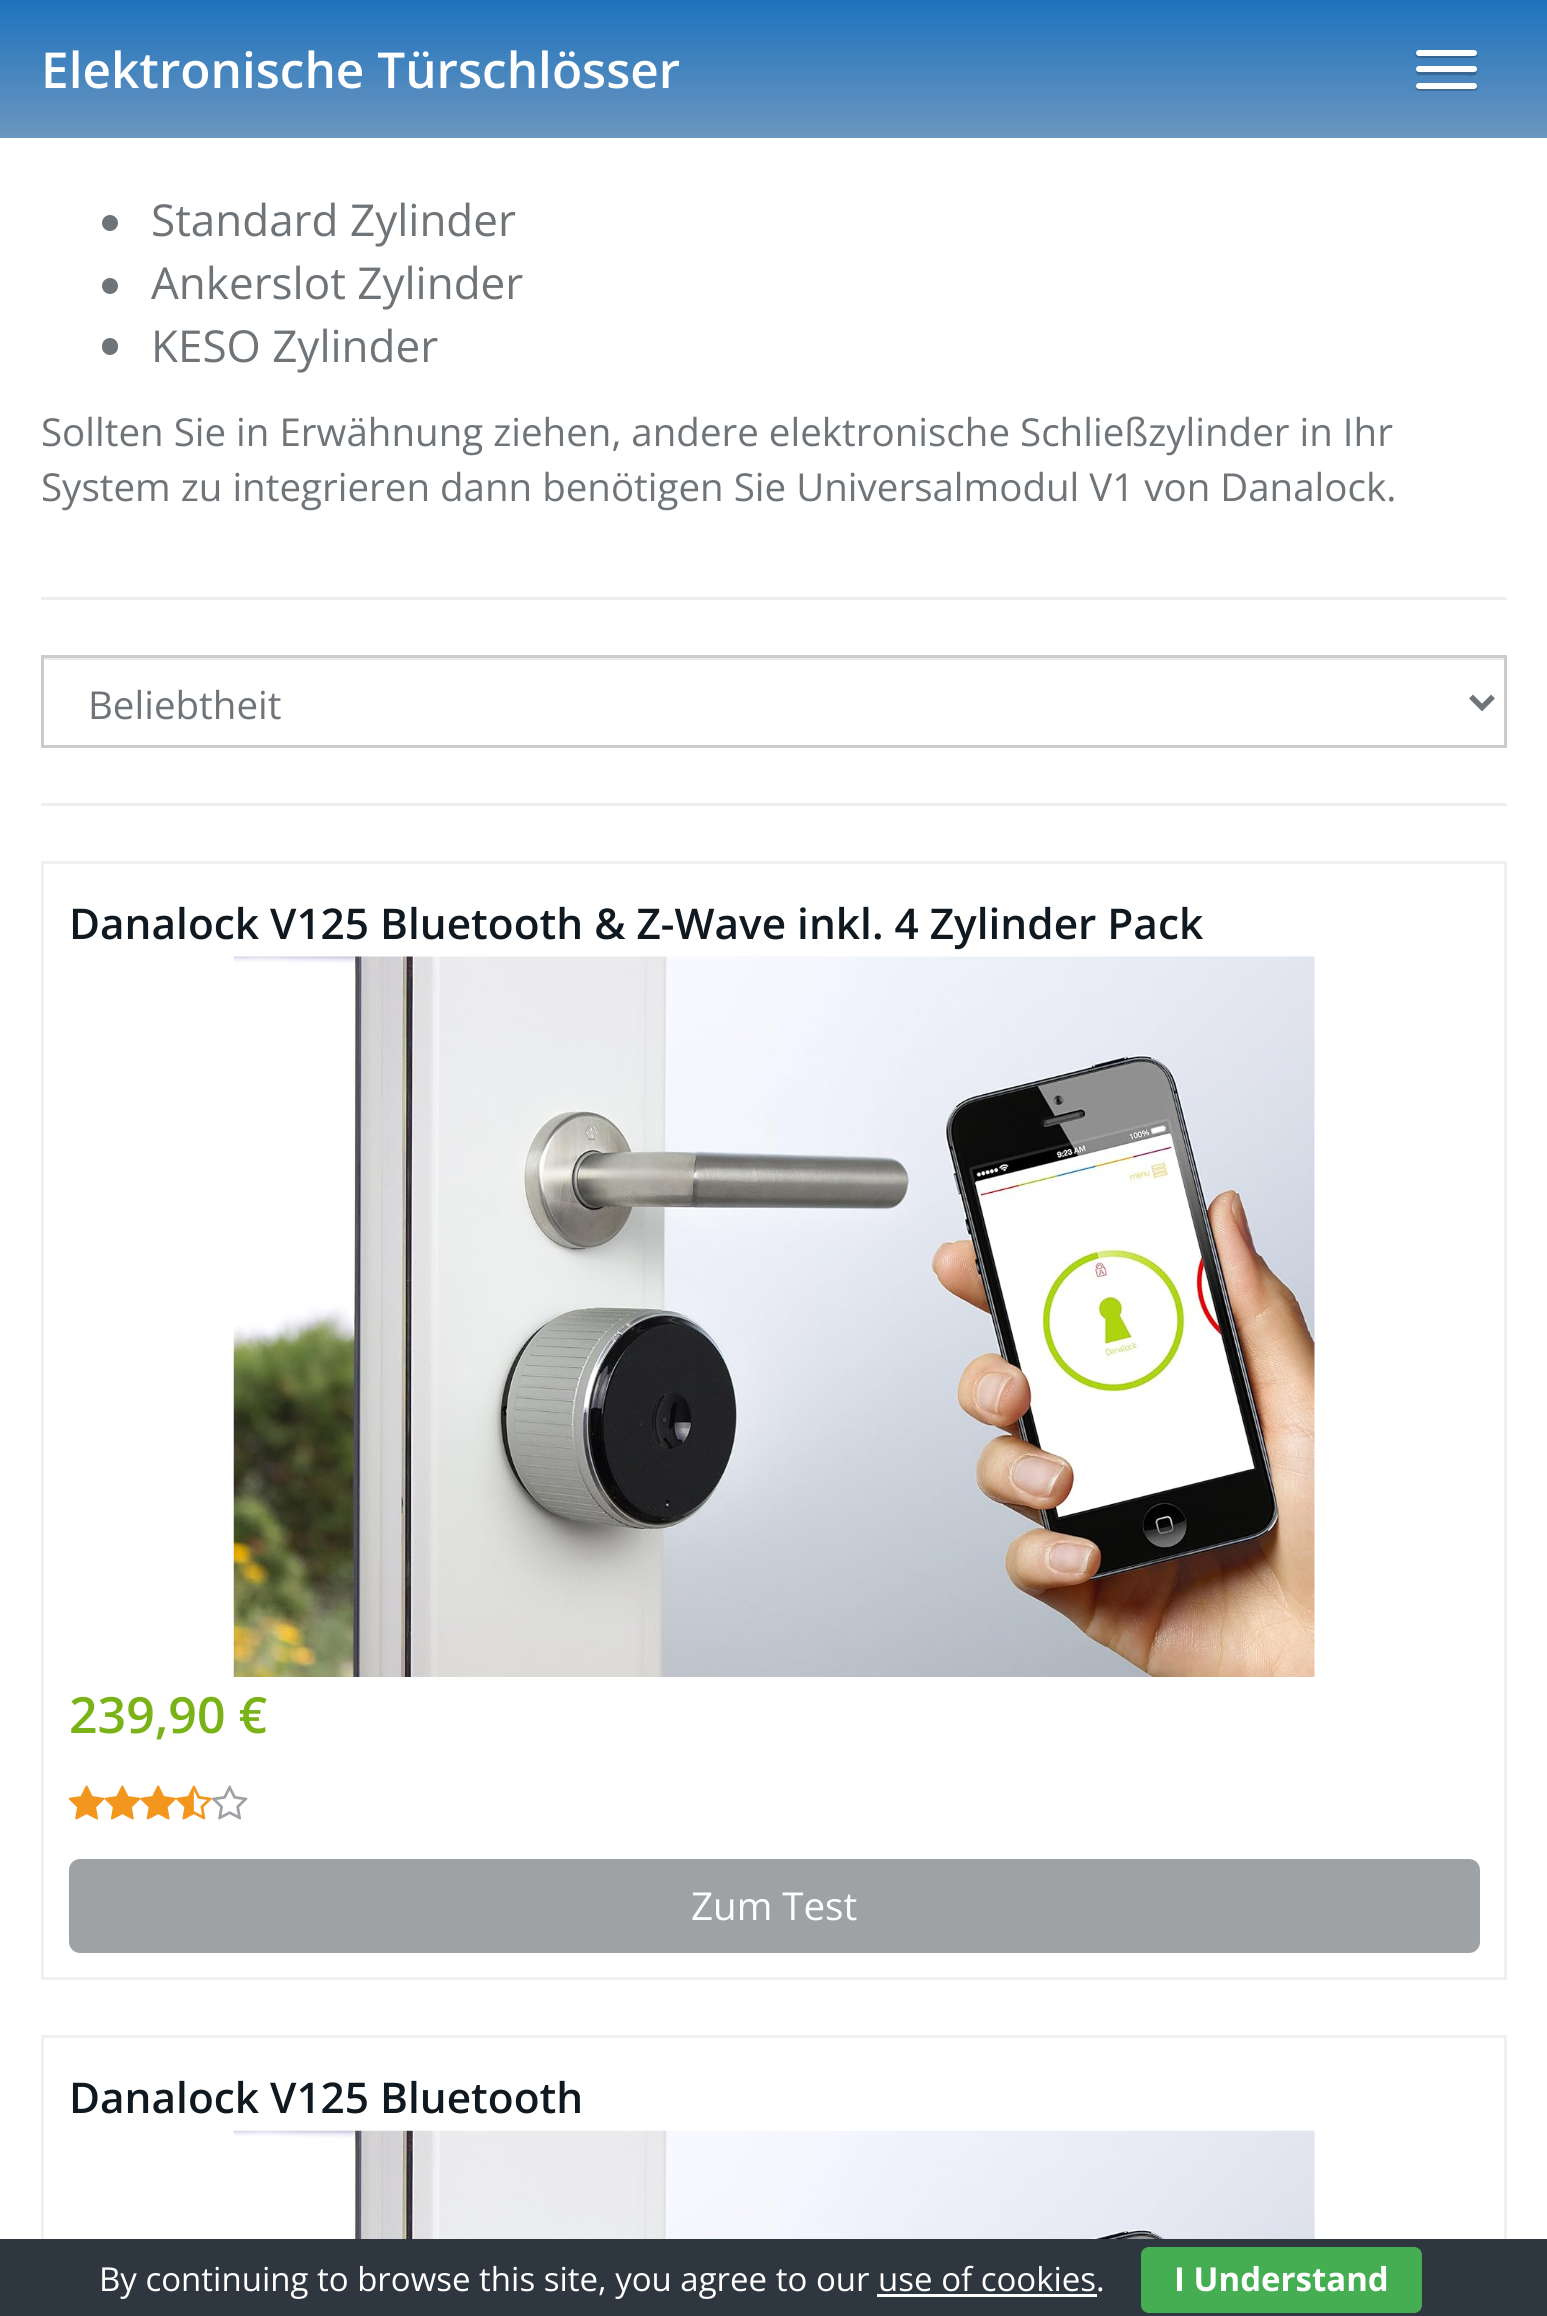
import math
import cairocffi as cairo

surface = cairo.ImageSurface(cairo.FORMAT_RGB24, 1547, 2316)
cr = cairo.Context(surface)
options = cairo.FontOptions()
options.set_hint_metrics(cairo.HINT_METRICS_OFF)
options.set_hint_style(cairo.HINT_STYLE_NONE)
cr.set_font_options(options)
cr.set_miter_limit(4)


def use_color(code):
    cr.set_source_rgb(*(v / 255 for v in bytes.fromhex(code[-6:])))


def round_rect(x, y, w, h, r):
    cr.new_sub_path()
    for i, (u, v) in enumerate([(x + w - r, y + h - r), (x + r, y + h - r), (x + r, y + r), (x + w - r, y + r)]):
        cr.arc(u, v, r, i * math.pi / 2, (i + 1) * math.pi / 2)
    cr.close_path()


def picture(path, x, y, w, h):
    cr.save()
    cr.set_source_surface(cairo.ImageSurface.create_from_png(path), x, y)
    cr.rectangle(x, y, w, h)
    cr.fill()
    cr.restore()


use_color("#ffffff")
cr.paint()
gradient = cairo.LinearGradient(774, 0, 774, 138)
gradient.add_color_stop_rgba(0, 0.118, 0.451, 0.745, 1)
gradient.add_color_stop_rgba(1, 0.42, 0.588, 0.749, 1)
cr.set_source(gradient)
cr.rectangle(0, 0, 1547, 138)
cr.fill()
cr.select_font_face("Open Sans SemiBold")
cr.set_font_size(49.5)
use_color("#ffffff")
cr.move_to(41, 88)
cr.show_text("Elektronische Türschlösser")
use_color("#316492")
cr.new_path()
cr.move_to(1416, 53)
cr.curve_to(1413, 59, 1422, 58, 1428, 58)
cr.line_to(1465, 58)
cr.curve_to(1471, 58, 1480, 59, 1477, 53)
cr.line_to(1474, 55)
cr.line_to(1419, 55)
cr.close_path()
cr.fill()
use_color("#ffffff")
round_rect(1416, 50, 61, 6, 3)
cr.fill()
cr.set_source_rgba(0.047, 0.047, 0.047, 0.25)
cr.new_path()
cr.move_to(1417, 70)
cr.curve_to(1415, 72, 1417, 75, 1419, 75)
cr.line_to(1465, 75)
cr.curve_to(1466, 75, 1476, 77, 1477, 73)
cr.line_to(1476, 70)
cr.line_to(1474, 71)
cr.line_to(1419, 71)
cr.close_path()
cr.fill()
use_color("#ffffff")
round_rect(1416, 66, 61, 6, 3)
cr.fill()
use_color("#3f6a92")
cr.new_path()
cr.move_to(1416, 86)
cr.curve_to(1413, 92, 1422, 91, 1428, 91)
cr.line_to(1465, 91)
cr.curve_to(1471, 91, 1480, 92, 1477, 86)
cr.line_to(1474, 88)
cr.line_to(1419, 88)
cr.close_path()
cr.fill()
use_color("#ffffff")
round_rect(1416, 83, 61, 6, 3)
cr.fill()
use_color("#6f7479")
cr.arc(110, 223, 8, 0, 2 * math.pi)
cr.fill()
cr.select_font_face("Open Sans")
cr.set_font_size(44)
cr.move_to(151, 236)
cr.show_text("Standard Zylinder")
cr.new_path()
cr.arc(110, 286, 8, 0, 2 * math.pi)
cr.fill()
cr.move_to(151, 299)
cr.show_text("Ankerslot Zylinder")
round_rect(102, 338, 16, 17, 8)
cr.fill()
cr.move_to(151, 362)
cr.show_text("KESO Zylinder")
cr.set_font_size(38.5)
cr.move_to(41, 446)
cr.show_text("Sollten Sie in Erwähnung ziehen, andere elektronische Schließzylinder in Ihr")
cr.move_to(41, 501)
cr.show_text("System zu integrieren dann benötigen Sie Universalmodul V1 von Danalock.")
use_color("#eeeeee")
cr.rectangle(41, 597, 1466, 3)
cr.fill()
use_color("#ececec")
cr.rectangle(44, 658, 1460, 2)
cr.fill()
cr.rectangle(42.5, 656.5, 1463, 90)
use_color("#cccccc")
cr.set_line_width(3)
cr.stroke()
cr.new_path()
cr.move_to(1471, 696.5)
cr.line_to(1482, 707.5)
cr.line_to(1493, 696.5)
use_color("#6f7479")
cr.set_line_width(5.5)
cr.stroke()
cr.move_to(88, 719)
cr.show_text("Beliebtheit")
use_color("#eeeeee")
cr.rectangle(41, 803, 1466, 3)
cr.fill()
cr.rectangle(42.5, 862.5, 1463, 1116)
use_color("#f0f0f0")
cr.set_line_width(3)
cr.stroke()
cr.select_font_face("Open Sans SemiBold")
cr.set_font_size(42.35)
use_color("#101820")
cr.move_to(69, 939)
cr.show_text("Danalock V125 Bluetooth & Z-Wave inkl. 4 Zylinder Pack")
picture("img1.png", 233, 956, 1082, 721)
cr.set_font_size(50)
use_color("#7ab317")
cr.move_to(69, 1733)
cr.show_text("239,90 €")
picture("img2.png", 68, 1785, 37, 35)
picture("img3.png", 104, 1785, 37, 35)
picture("img4.png", 140, 1785, 36, 35)
picture("img5.png", 176, 1785, 36, 35)
picture("img6.png", 211, 1785, 37, 35)
use_color("#9fa2a5")
round_rect(70.5, 1860.5, 1408, 91, 9.5)
cr.fill_preserve()
cr.stroke()
cr.select_font_face("Open Sans")
cr.set_font_size(38.5)
use_color("#ffffff")
cr.move_to(691, 1920)
cr.show_text("Zum Test")
cr.rectangle(42.5, 2036.5, 1463, 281)
use_color("#f0f0f0")
cr.stroke()
cr.select_font_face("Open Sans SemiBold")
cr.set_font_size(42.35)
use_color("#101820")
cr.move_to(69, 2113)
cr.show_text("Danalock V125 Bluetooth")
picture("img7.png", 233, 2130, 1082, 109)
use_color("#2e363f")
cr.rectangle(0, 2239, 1547, 77)
cr.fill()
cr.select_font_face("Open Sans")
cr.set_font_size(33)
use_color("#ffffff")
cr.move_to(99, 2291)
cr.show_text("By continuing to browse this site, you agree to our use of cookies.")
use_color("#45ae52")
round_rect(1141, 2247, 281, 66, 8)
cr.fill()
cr.select_font_face("Open Sans", cairo.FONT_SLANT_NORMAL, cairo.FONT_WEIGHT_BOLD)
use_color("#ffffff")
cr.move_to(1174, 2291)
cr.show_text("I Understand")
cr.rectangle(877, 2294, 220, 3)
cr.fill()
surface.write_to_png("result.png")
